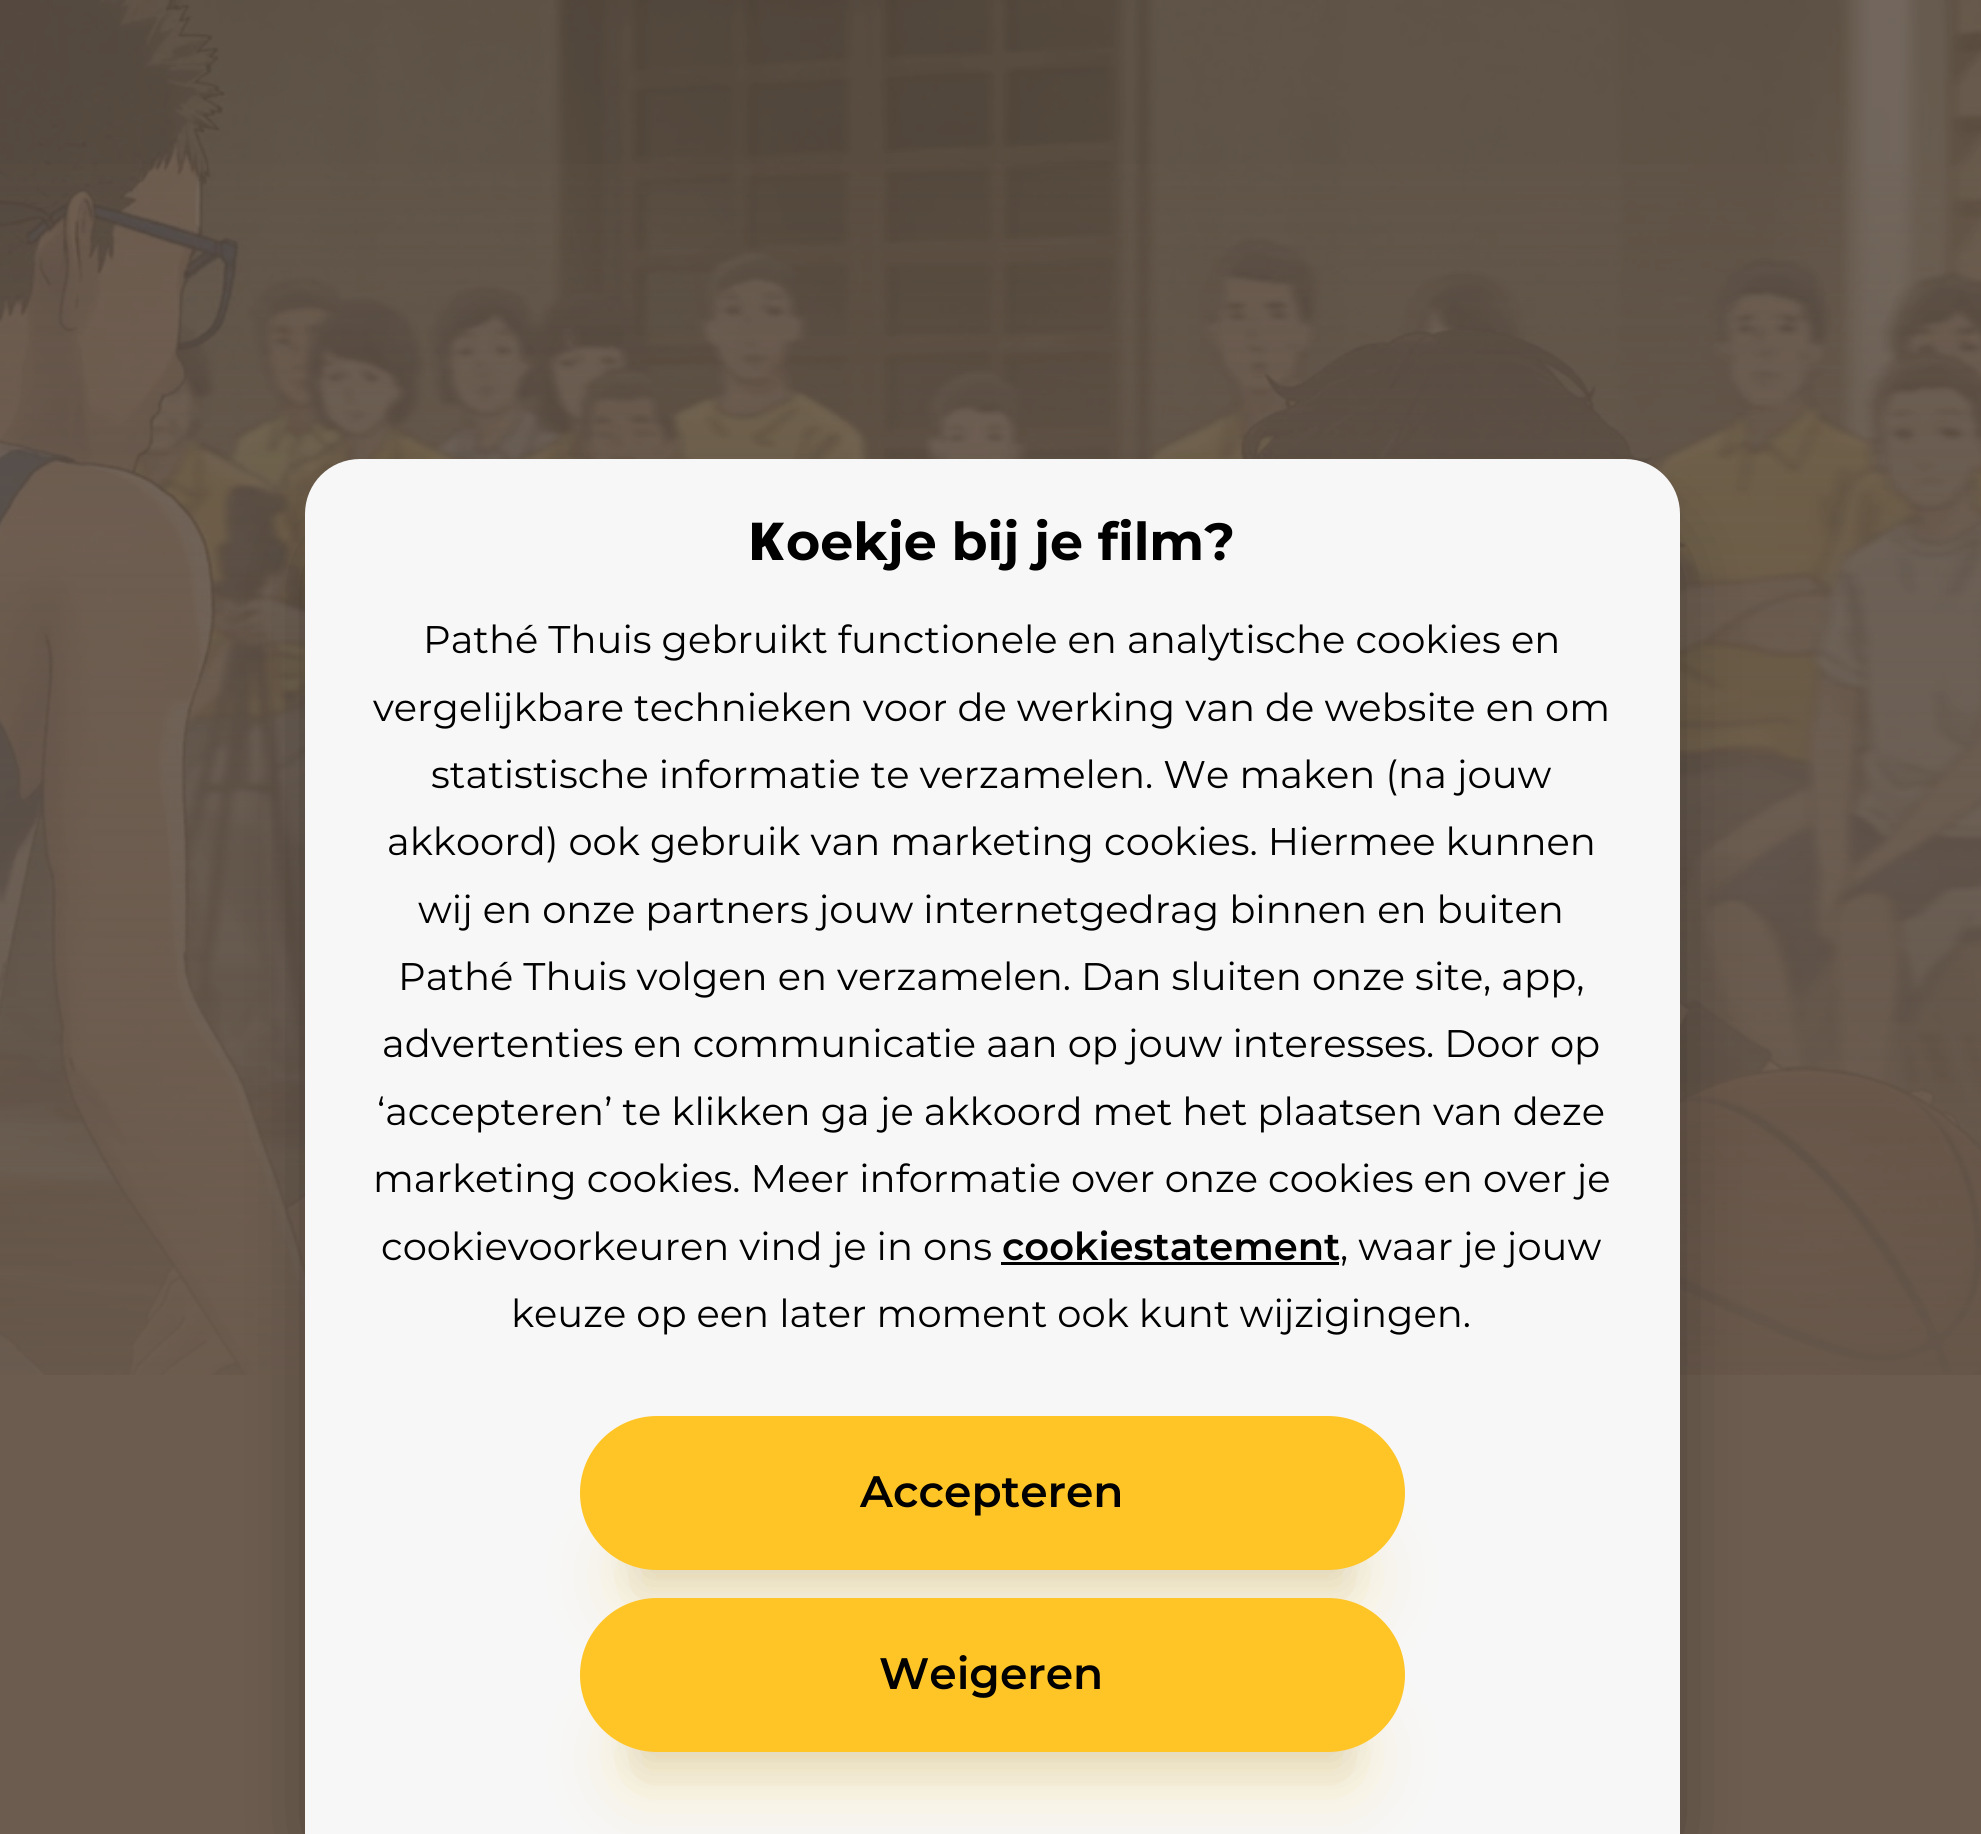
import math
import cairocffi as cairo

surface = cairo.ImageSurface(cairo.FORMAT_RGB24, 1981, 1834)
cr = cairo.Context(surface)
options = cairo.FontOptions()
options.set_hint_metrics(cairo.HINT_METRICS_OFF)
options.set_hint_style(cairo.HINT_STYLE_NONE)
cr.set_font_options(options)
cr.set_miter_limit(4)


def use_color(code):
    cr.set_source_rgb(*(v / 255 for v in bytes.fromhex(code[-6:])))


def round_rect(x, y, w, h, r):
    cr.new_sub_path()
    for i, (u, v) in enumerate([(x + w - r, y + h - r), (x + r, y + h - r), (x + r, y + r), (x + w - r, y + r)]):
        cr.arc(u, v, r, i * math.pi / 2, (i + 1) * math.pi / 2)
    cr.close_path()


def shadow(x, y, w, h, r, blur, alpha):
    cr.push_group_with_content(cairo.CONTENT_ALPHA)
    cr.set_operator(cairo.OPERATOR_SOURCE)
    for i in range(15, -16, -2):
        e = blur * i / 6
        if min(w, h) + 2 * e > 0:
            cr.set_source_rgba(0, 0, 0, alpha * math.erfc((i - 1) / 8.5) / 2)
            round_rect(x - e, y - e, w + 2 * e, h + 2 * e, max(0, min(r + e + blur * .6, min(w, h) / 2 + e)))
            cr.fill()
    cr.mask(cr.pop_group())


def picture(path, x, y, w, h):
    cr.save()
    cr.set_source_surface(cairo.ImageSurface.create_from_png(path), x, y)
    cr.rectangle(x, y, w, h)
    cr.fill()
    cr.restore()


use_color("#6c5c4f")
cr.paint()
picture("img1.png", 0, 0, 1981, 1375)
gradient = cairo.LinearGradient(991, 0, 991, 1397)
gradient.add_color_stop_rgba(0, 0.424, 0.361, 0.31, 0)
gradient.add_color_stop_rgba(1, 0.424, 0.361, 0.31, 0.75)
cr.set_source(gradient)
cr.rectangle(0, 164, 1981, 1211)
cr.fill()
use_color("#000000")
shadow(333, 542, 1320, 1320, 28, 41, 0.5)
use_color("#f7f7f7")
cr.new_path()
cr.move_to(360, 459)
cr.line_to(1625, 459)
cr.curve_to(1655.5, 459, 1680, 483.5, 1680, 514)
cr.line_to(1680, 1834)
cr.line_to(305, 1834)
cr.line_to(305, 514)
cr.curve_to(305, 483.5, 329.5, 459, 360, 459)
cr.close_path()
cr.fill()
cr.select_font_face("Noto Sans Black")
cr.set_font_size(52.25)
use_color("#000000")
cr.move_to(748, 560)
cr.show_text("K")
cr.select_font_face("Montserrat", cairo.FONT_SLANT_NORMAL, cairo.FONT_WEIGHT_BOLD)
cr.move_to(786, 560)
cr.show_text("oekje bij je film?")
cr.select_font_face("Montserrat")
cr.set_font_size(38.5)
cr.move_to(423, 653)
cr.show_text("Pathé Thuis gebruikt functionele en analytische cookies en")
cr.move_to(373, 721)
cr.show_text("vergelijkbare technieken voor de werking van de website en om")
cr.move_to(431, 788)
cr.show_text("statistische informatie te verzamelen. We maken (na jouw")
cr.move_to(387, 855)
cr.show_text("akkoord) ook gebruik van marketing cookies. Hiermee kunnen")
cr.move_to(418, 923)
cr.show_text("wij en onze partners jouw internetgedrag binnen en buiten")
cr.move_to(398, 990)
cr.show_text("Pathé Thuis volgen en verzamelen. Dan sluiten onze site, app,")
cr.move_to(382, 1057)
cr.show_text("advertenties en communicatie aan op jouw interesses. Door op")
cr.move_to(377, 1125)
cr.show_text("‘accepteren’ te klikken ga je akkoord met het plaatsen van deze")
cr.move_to(373, 1192)
cr.show_text("marketing cookies. Meer informatie over onze cookies en over je")
cr.move_to(381, 1260)
cr.show_text("cookievoorkeuren vind je in ons")
cr.select_font_face("Montserrat SemiBold")
cr.move_to(1002, 1260)
cr.show_text("cookiestatement")
cr.rectangle(1001, 1262, 338, 3)
cr.fill()
cr.select_font_face("Montserrat")
cr.move_to(1340, 1260)
cr.show_text(", waar je jouw")
cr.move_to(511, 1327)
cr.show_text("keuze op een later moment ook kunt wijzigingen.")
use_color("#ffc426")
shadow(635, 1554, 715, 44, 22, 41, 0.3)
use_color("#000000")
shadow(635, 1540, 715, 44, 22, 20.5, 0.1)
use_color("#ffc426")
round_rect(580, 1416, 825, 154, 77)
cr.fill()
cr.select_font_face("Montserrat SemiBold")
cr.set_font_size(44)
use_color("#000000")
cr.move_to(860, 1507)
cr.show_text("Accepteren")
use_color("#ffc426")
shadow(635, 1735, 715, 44, 22, 41, 0.3)
use_color("#000000")
shadow(635, 1722, 715, 44, 22, 20.5, 0.1)
use_color("#ffc426")
round_rect(580, 1598, 825, 154, 77)
cr.fill()
use_color("#000000")
cr.move_to(879, 1689)
cr.show_text("Weigeren")
surface.write_to_png("result.png")
